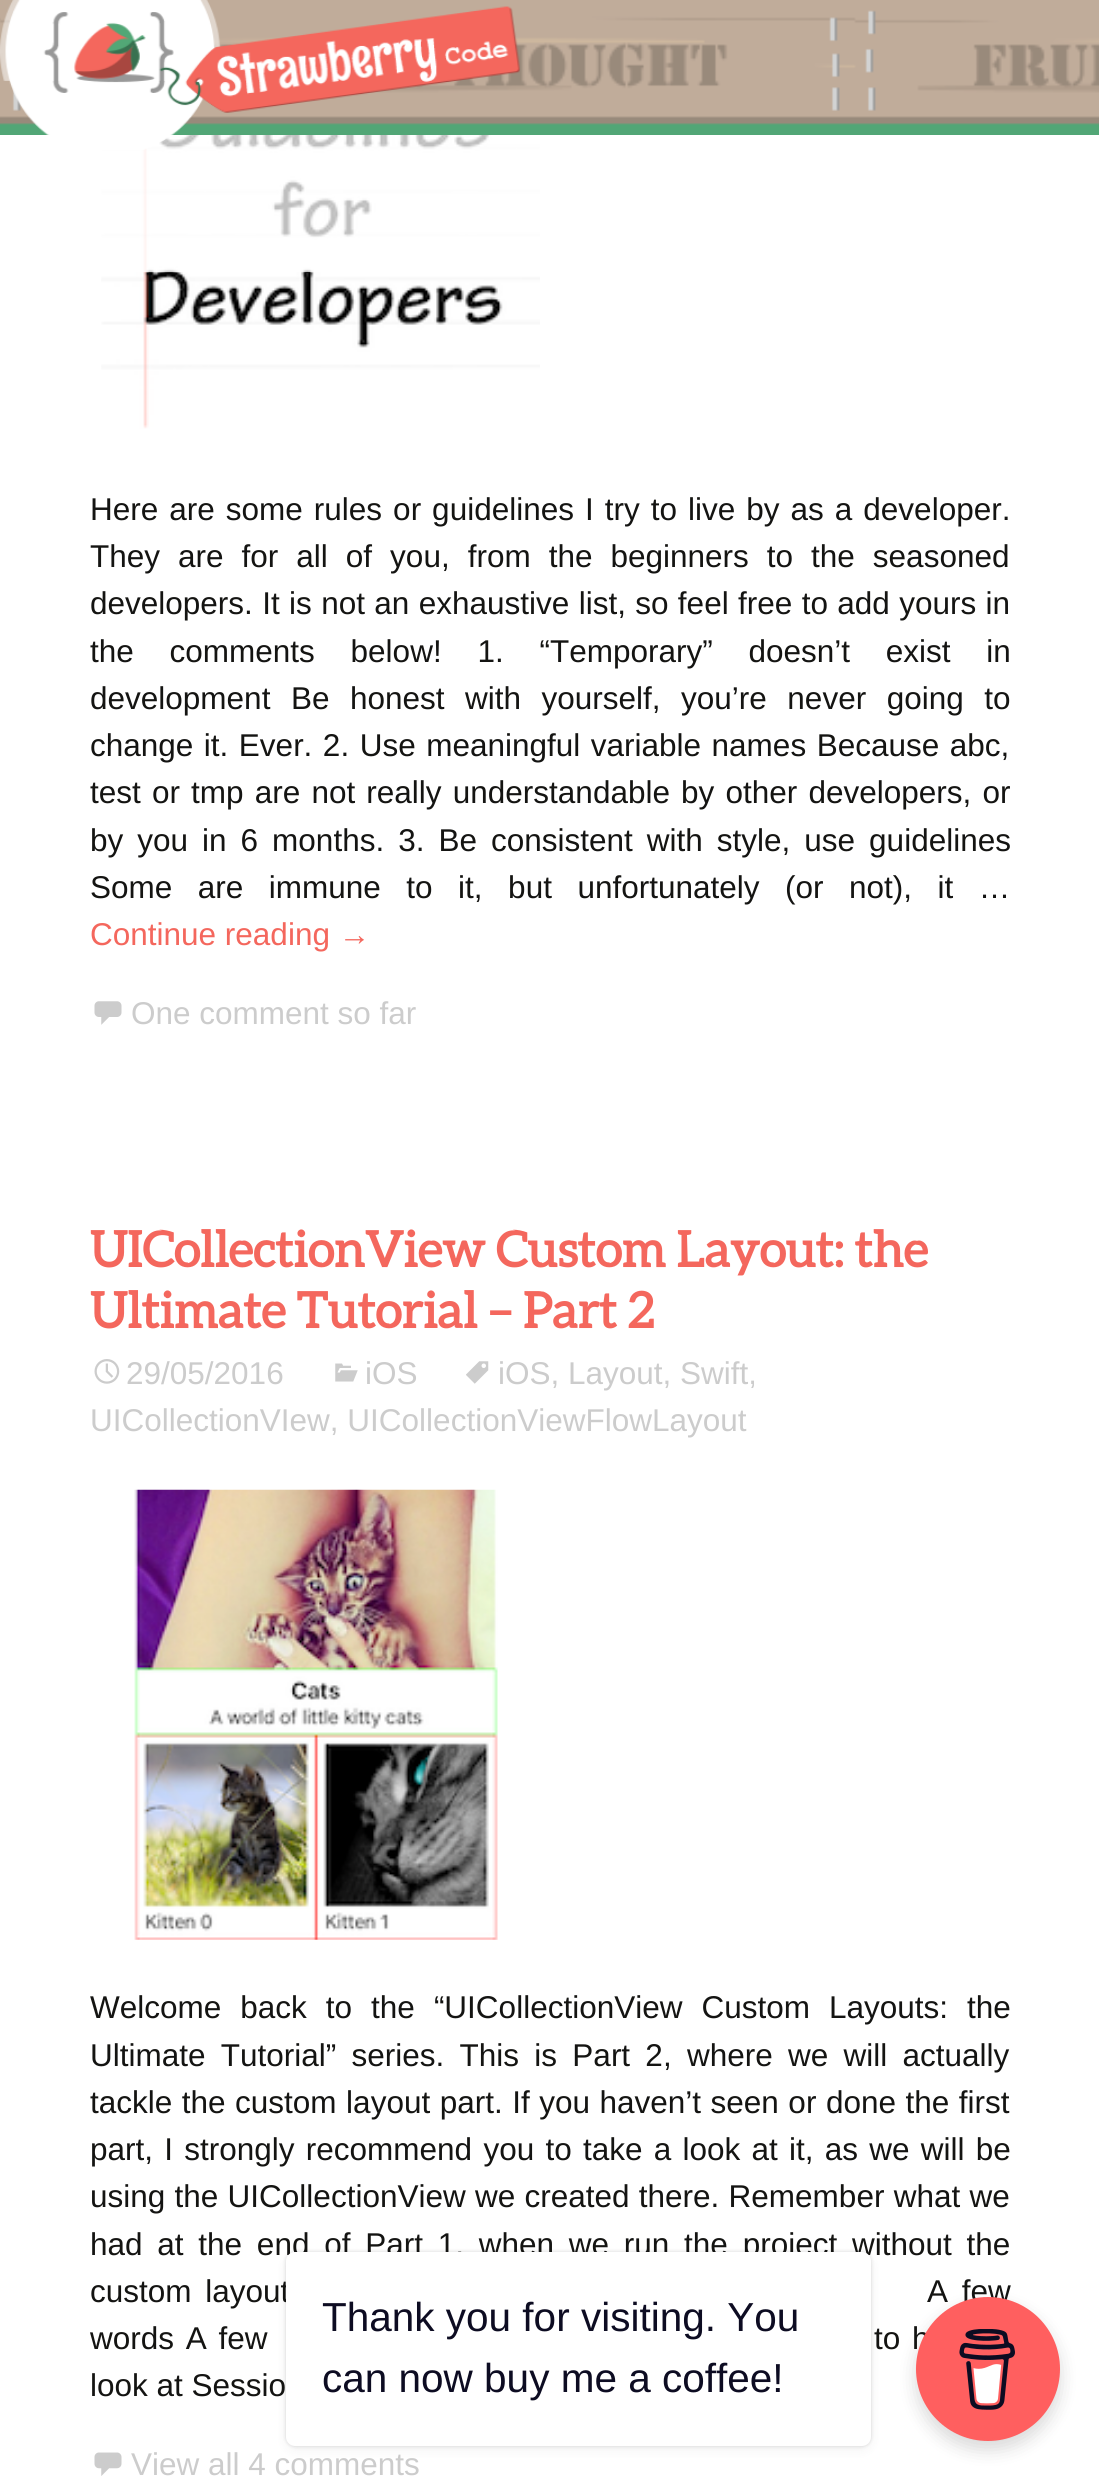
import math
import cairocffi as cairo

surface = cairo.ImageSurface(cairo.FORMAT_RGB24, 1099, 2481)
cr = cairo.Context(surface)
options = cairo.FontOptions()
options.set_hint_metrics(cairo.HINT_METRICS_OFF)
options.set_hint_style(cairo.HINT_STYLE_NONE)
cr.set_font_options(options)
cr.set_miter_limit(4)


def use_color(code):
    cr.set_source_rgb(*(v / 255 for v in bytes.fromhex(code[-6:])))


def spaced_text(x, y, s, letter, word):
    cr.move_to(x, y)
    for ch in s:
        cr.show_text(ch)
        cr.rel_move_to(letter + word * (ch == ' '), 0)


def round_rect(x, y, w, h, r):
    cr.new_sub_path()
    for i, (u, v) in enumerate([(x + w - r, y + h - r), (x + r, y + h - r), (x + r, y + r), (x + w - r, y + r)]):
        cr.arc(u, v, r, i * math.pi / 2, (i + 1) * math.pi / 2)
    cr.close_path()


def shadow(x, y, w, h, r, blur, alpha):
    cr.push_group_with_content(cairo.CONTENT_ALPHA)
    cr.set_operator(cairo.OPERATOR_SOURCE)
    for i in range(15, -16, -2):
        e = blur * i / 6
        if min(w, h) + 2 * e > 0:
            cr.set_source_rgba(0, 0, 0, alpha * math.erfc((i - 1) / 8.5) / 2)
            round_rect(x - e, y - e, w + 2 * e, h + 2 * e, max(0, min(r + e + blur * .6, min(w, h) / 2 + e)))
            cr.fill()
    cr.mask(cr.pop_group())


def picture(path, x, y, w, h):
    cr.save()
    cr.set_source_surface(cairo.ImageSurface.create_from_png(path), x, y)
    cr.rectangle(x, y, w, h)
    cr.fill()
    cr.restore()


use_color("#ffffff")
cr.paint()
picture("img1.png", 0, 0, 1099, 135)
picture("img3.png", 101, 135, 439, 294)
cr.set_source_rgba(1, 1, 1, 0.75)
cr.rectangle(101, 135, 439, 137)
cr.fill()
picture("img2.png", 0, 0, 520, 150)
cr.select_font_face("Liberation Sans")
cr.set_font_size(31.5)
use_color("#141412")
spaced_text(90, 520, "Here are some rules or guidelines I try to live by as a developer.", 0, 2.25)
spaced_text(90, 567, "They are for all of you, from the beginners to the seasoned", 0, 9.25)
spaced_text(90, 614, "developers. It is not an exhaustive list, so feel free to add yours in", 0, 0.6)
spaced_text(90, 662, "the comments below! 1. “Temporary” doesn’t exist in", 0, 27)
spaced_text(90, 709, "development Be honest with yourself, you’re never going to", 0, 11.75)
spaced_text(90, 756, "change it. Ever. 2. Use meaningful variable names Because abc,", 0, 1.75)
spaced_text(90, 803, "test or tmp are not really understandable by other developers, or", 0, 2.4)
spaced_text(90, 851, "by you in 6 months. 3. Be consistent with style, use guidelines", 0, 5.25)
spaced_text(90, 898, "Some are immune to it, but unfortunately (or not), it …", 0, 16.75)
use_color("#f4675d")
cr.move_to(90, 945)
cr.show_text("Continue reading →")
picture("img4.png", 94, 1001, 28, 24)
use_color("#cccccc")
cr.move_to(131, 1024)
cr.show_text("One comment so far")
cr.select_font_face("Aleo", cairo.FONT_SLANT_NORMAL, cairo.FONT_WEIGHT_BOLD)
cr.set_font_size(49.5)
use_color("#f4675d")
cr.move_to(90, 1267)
cr.show_text("UICollectionView Custom Layout: the")
cr.move_to(90, 1328)
cr.show_text("Ultimate Tutorial – Part 2")
picture("img5.png", 466, 1361, 23, 23)
cr.select_font_face("Liberation Sans")
cr.set_font_size(31.5)
use_color("#cccccc")
cr.move_to(498, 1384)
cr.show_text("iOS, Layout, Swift,")
cr.move_to(90, 1431)
cr.show_text("UICollectionVIew, UICollectionViewFlowLayout")
picture("img6.png", 94, 1359, 26, 25)
cr.move_to(126, 1384)
cr.show_text("29/05/2016")
picture("img7.png", 335, 1363, 23, 19)
cr.move_to(365, 1384)
cr.show_text("iOS")
picture("img8.png", 134, 1489, 364, 451)
use_color("#141412")
spaced_text(90, 2018, "Welcome back to the “UICollectionView Custom Layouts: the", 0, 10.25)
spaced_text(90, 2066, "Ultimate Tutorial” series. This is Part 2, where we will actually", 0, 6.5)
spaced_text(90, 2113, "tackle the custom layout part. If you haven’t seen or done the first", 0, 0.75)
spaced_text(90, 2160, "part, I strongly recommend you to take a look at it, as we will be", 0, 2.5)
spaced_text(90, 2207, "using the UICollectionView we created there. Remember what we", 0, 0.5)
spaced_text(90, 2255, "had at the end of Part 1, when we run the project without the", 0, 6)
spaced_text(90, 2302, "custom layout", 0, 5)
spaced_text(927, 2302, "A few", 0, 5)
spaced_text(90, 2349, "words A few", 0, 3)
spaced_text(874, 2349, "to h", 0, 3)
cr.move_to(90, 2396)
cr.show_text("look at Sessio")
picture("img9.png", 94, 2452, 28, 24)
use_color("#cccccc")
cr.move_to(131, 2475)
cr.show_text("View all 4 comments")
use_color("#000000")
shadow(286, 2252, 585, 194, 9, 2, 0.15)
shadow(286, 2257, 585, 193, 9, 5.5, 0.05)
use_color("#ffffff")
round_rect(286, 2252, 585, 194, 9)
cr.fill()
cr.set_font_size(40.5)
use_color("#0d0c22")
cr.move_to(322, 2331)
cr.show_text("Thank you for visiting. You")
cr.move_to(322, 2392)
cr.show_text("can now buy me a coffee!")
use_color("#000000")
shadow(916, 2306, 144, 144, 72, 9, 0.15)
use_color("#ff5f5f")
cr.arc(988, 2369, 72, 0, 2 * math.pi)
cr.fill()
picture("img10.png", 959, 2329, 56, 81)
surface.write_to_png("result.png")
